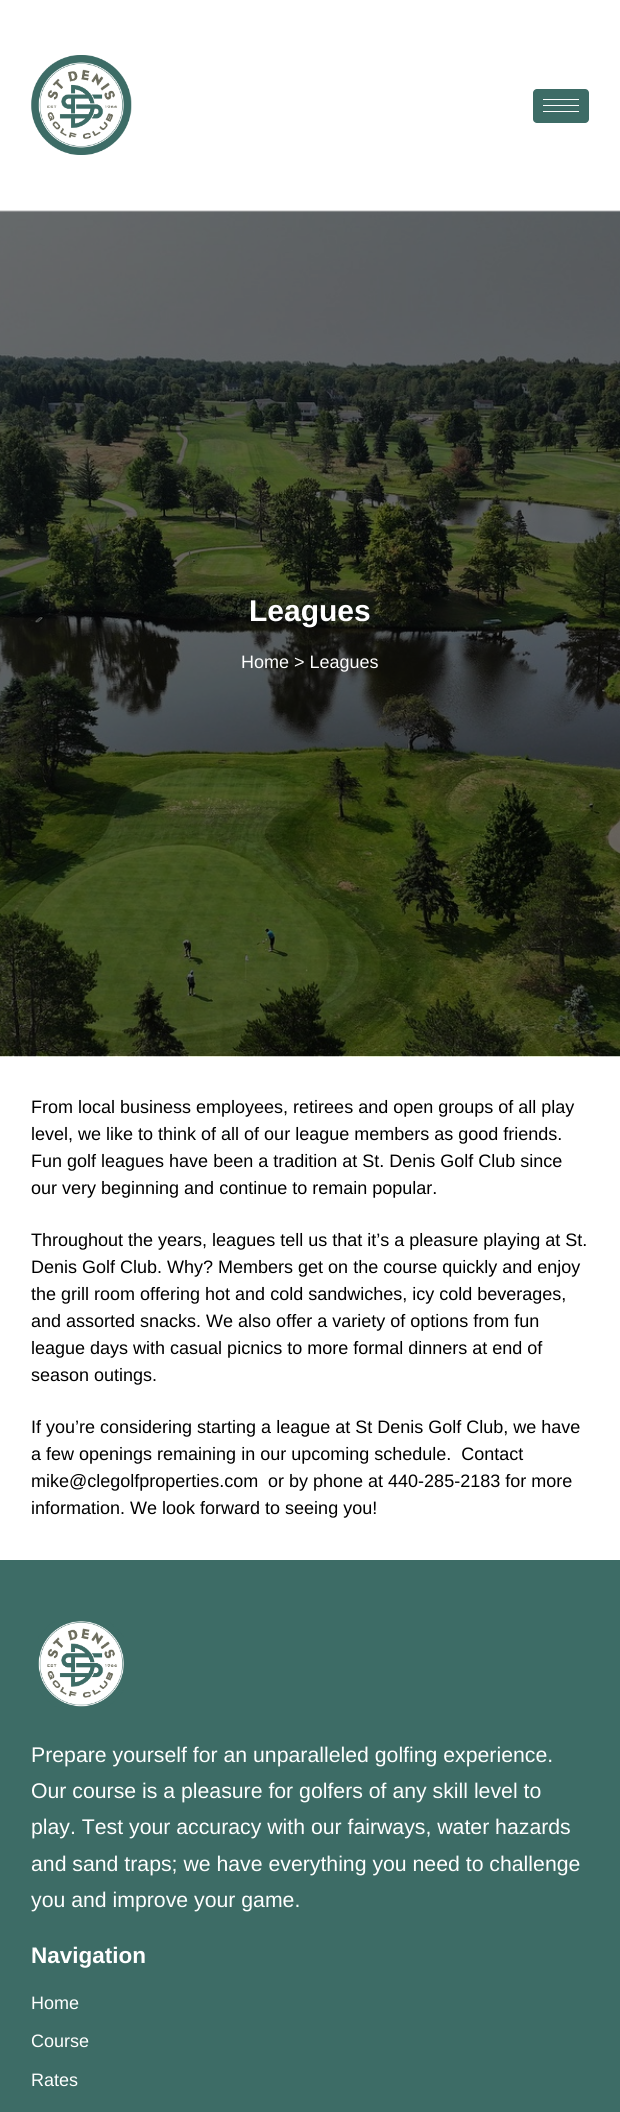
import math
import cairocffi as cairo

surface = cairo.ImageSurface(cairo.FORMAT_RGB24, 620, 2112)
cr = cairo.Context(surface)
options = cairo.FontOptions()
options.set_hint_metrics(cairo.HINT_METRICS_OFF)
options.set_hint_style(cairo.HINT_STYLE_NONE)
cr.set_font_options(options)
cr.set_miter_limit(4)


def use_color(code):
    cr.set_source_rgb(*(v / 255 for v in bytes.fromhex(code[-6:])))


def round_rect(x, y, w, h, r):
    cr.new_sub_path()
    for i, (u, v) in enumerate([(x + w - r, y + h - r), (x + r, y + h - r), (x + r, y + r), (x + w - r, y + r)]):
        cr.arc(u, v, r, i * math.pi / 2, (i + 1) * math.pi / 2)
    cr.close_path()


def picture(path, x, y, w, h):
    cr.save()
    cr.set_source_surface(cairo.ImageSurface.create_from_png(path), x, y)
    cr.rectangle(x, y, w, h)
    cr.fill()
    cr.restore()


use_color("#ffffff")
cr.paint()
use_color("#dbdbdb")
cr.rectangle(0, 210, 620, 1)
cr.fill()
picture("img1.png", 31, 55, 101, 100)
use_color("#3d6c66")
round_rect(533, 89, 56, 34, 4)
cr.fill()
use_color("#ffffff")
cr.rectangle(543, 99, 36, 1)
cr.fill()
cr.rectangle(543, 105, 36, 1)
cr.fill()
cr.rectangle(543, 111, 36, 1)
cr.fill()
picture("img2.png", 0, 211, 620, 846)
cr.select_font_face("Liberation Sans", cairo.FONT_SLANT_NORMAL, cairo.FONT_WEIGHT_BOLD)
cr.set_font_size(30)
cr.move_to(249, 621)
cr.show_text("Leagues")
cr.select_font_face("Liberation Sans")
cr.set_font_size(18)
cr.move_to(241, 668)
cr.show_text("Home > Leagues")
use_color("#000000")
cr.move_to(31, 1113)
cr.show_text("From local business employees, retirees and open groups of all play")
cr.move_to(31, 1140)
cr.show_text("level, we like to think of all of our league members as good friends.")
cr.move_to(31, 1167)
cr.show_text("Fun golf leagues have been a tradition at St. Denis Golf Club since")
cr.move_to(31, 1194)
cr.show_text("our very beginning and continue to remain popular.")
cr.move_to(31, 1246)
cr.show_text("Throughout the years, leagues tell us that it’s a pleasure playing at St.")
cr.move_to(31, 1273)
cr.show_text("Denis Golf Club. Why? Members get on the course quickly and enjoy")
cr.move_to(31, 1300)
cr.show_text("the grill room offering hot and cold sandwiches, icy cold beverages,")
cr.move_to(31, 1327)
cr.show_text("and assorted snacks. We also offer a variety of options from fun")
cr.move_to(31, 1354)
cr.show_text("league days with casual picnics to more formal dinners at end of")
cr.move_to(31, 1381)
cr.show_text("season outings.")
cr.move_to(31, 1433)
cr.show_text("If you’re considering starting a league at St Denis Golf Club, we have")
cr.move_to(31, 1460)
cr.show_text("a few openings remaining in our upcoming schedule.  Contact")
cr.move_to(31, 1487)
cr.show_text("mike@clegolfproperties.com")
cr.move_to(268, 1487)
cr.show_text("or by phone at 440-285-2183 for more")
cr.move_to(31, 1514)
cr.show_text("information. We look forward to seeing you!")
use_color("#3d6c66")
cr.rectangle(0, 1560, 620, 552)
cr.fill()
picture("img3.png", 38, 1621, 86, 86)
cr.set_font_size(21.25)
use_color("#ffffff")
cr.move_to(31, 1762)
cr.show_text("Prepare yourself for an unparalleled golfing experience.")
cr.move_to(31, 1798)
cr.show_text("Our course is a pleasure for golfers of any skill level to")
cr.move_to(31, 1834)
cr.show_text("play. Test your accuracy with our fairways, water hazards")
cr.move_to(31, 1871)
cr.show_text("and sand traps; we have everything you need to challenge")
cr.move_to(31, 1907)
cr.show_text("you and improve your game.")
cr.select_font_face("Liberation Sans", cairo.FONT_SLANT_NORMAL, cairo.FONT_WEIGHT_BOLD)
cr.set_font_size(22.5)
cr.move_to(31, 1963)
cr.show_text("Navigation")
cr.select_font_face("Liberation Sans")
cr.set_font_size(18)
cr.move_to(31, 2009)
cr.show_text("Home")
cr.move_to(31, 2047)
cr.show_text("Course")
cr.move_to(31, 2086)
cr.show_text("Rates")
surface.write_to_png("result.png")
